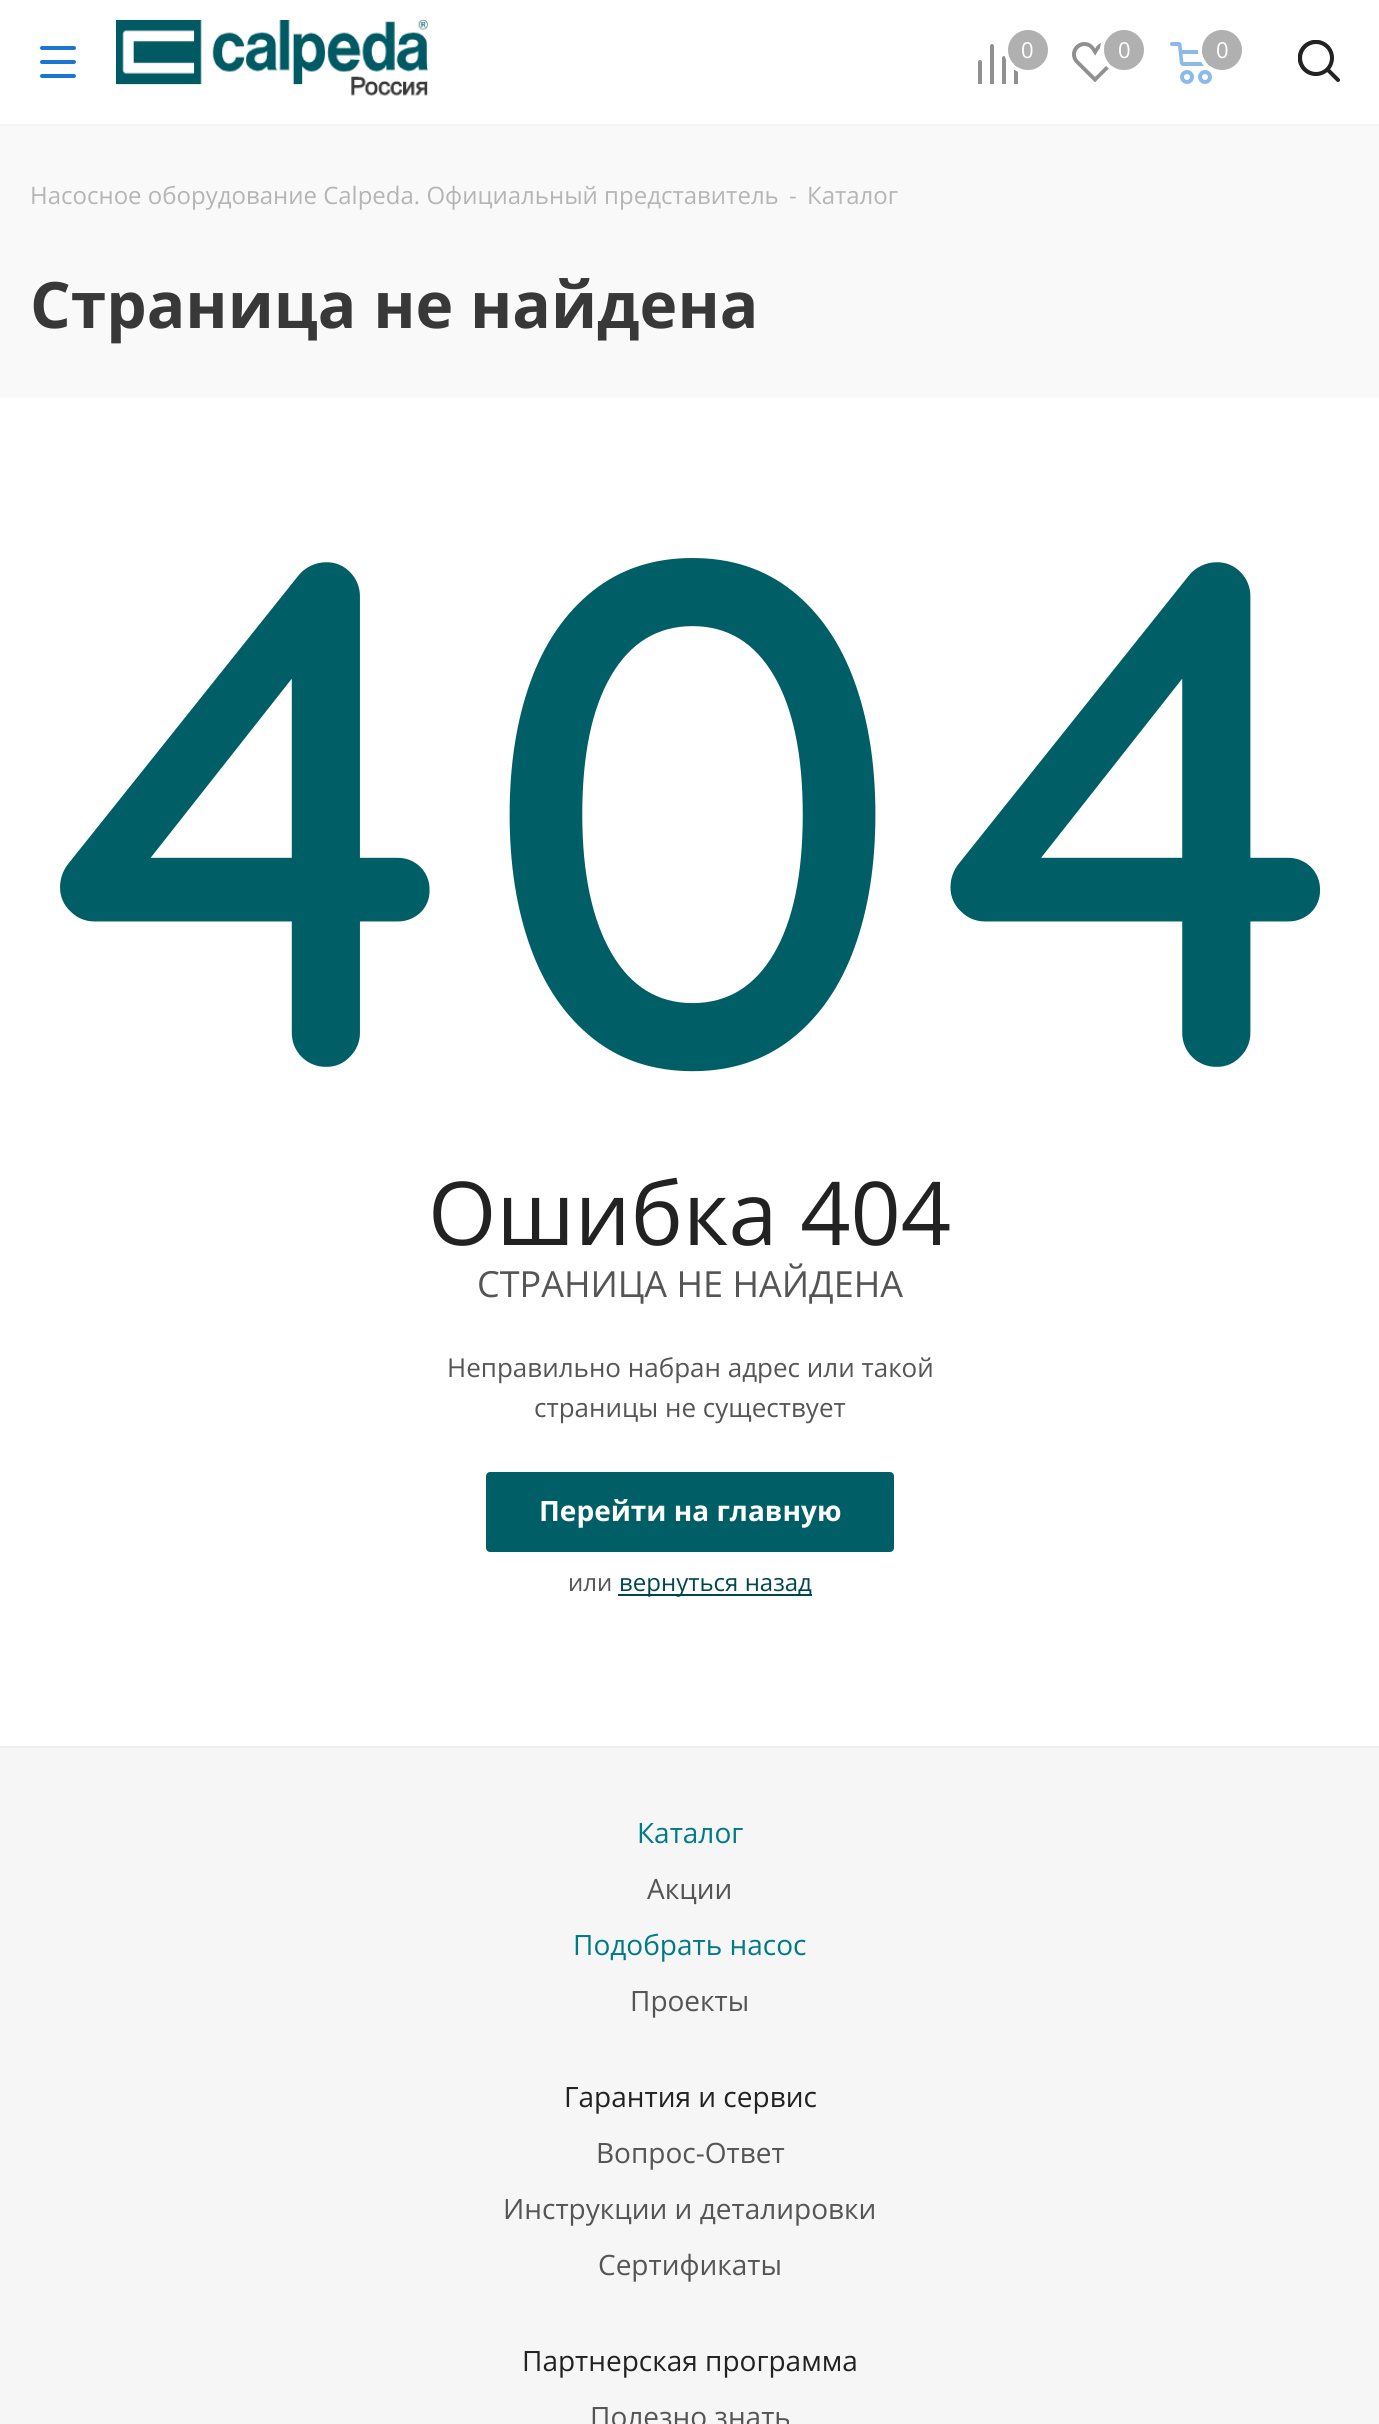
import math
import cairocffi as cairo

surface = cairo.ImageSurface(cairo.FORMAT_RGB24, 1379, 2424)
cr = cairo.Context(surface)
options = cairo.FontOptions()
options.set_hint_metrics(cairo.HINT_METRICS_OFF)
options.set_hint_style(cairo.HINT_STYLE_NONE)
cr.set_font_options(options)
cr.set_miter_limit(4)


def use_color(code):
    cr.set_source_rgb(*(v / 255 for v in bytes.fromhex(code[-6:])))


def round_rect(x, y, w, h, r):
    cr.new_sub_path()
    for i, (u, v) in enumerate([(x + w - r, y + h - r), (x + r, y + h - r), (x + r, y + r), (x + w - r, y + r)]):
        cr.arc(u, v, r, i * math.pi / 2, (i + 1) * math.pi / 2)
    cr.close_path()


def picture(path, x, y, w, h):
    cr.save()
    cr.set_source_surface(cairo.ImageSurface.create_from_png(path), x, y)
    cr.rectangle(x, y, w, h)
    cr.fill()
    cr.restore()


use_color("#ffffff")
cr.paint()
use_color("#f5f5f5")
cr.rectangle(0, 124, 1379, 2)
cr.fill()
picture("img1.png", 40, 46, 36, 32)
picture("img2.png", 116, 20, 312, 76)
picture("img3.png", 978, 44, 40, 40)
cr.arc(1028, 50, 22, 0, 2 * math.pi)
use_color("#ffffff")
cr.set_line_width(4)
cr.stroke()
use_color("#b0b0b0")
cr.arc(1028, 50, 20, 0, 2 * math.pi)
cr.fill()
cr.select_font_face("Open Sans")
cr.set_font_size(22)
use_color("#ffffff")
cr.move_to(1021, 58)
cr.show_text("0")
picture("img4.png", 1072, 42, 40, 40)
cr.arc(1124, 50, 22, 0, 2 * math.pi)
cr.stroke()
use_color("#b0b0b0")
cr.arc(1124, 50, 20, 0, 2 * math.pi)
cr.fill()
use_color("#ffffff")
cr.move_to(1118, 58)
cr.show_text("0")
picture("img5.png", 1170, 42, 42, 42)
cr.arc(1222, 50, 22, 0, 2 * math.pi)
cr.stroke()
use_color("#b0b0b0")
cr.arc(1222, 50, 20, 0, 2 * math.pi)
cr.fill()
use_color("#ffffff")
cr.move_to(1216, 58)
cr.show_text("0")
picture("img6.png", 1298, 40, 42, 42)
use_color("#f9f9f9")
cr.rectangle(0, 126, 1379, 272)
cr.fill()
cr.set_font_size(24)
use_color("#b6b5b5")
cr.move_to(30, 204)
cr.show_text("Насосное оборудование Calpeda. Официальный представитель")
cr.move_to(789, 204)
cr.show_text("-")
cr.move_to(807, 204)
cr.show_text("Каталог")
cr.select_font_face("Open Sans", cairo.FONT_SLANT_NORMAL, cairo.FONT_WEIGHT_BOLD)
cr.set_font_size(64)
use_color("#383838")
cr.move_to(30, 328)
cr.show_text("Страница не найдена")
picture("img7.png", 60, 558, 1260, 514)
cr.select_font_face("Open Sans")
cr.set_font_size(88)
use_color("#222222")
cr.move_to(428, 1245)
cr.show_text("Ошибка 404")
cr.set_font_size(36)
use_color("#555555")
cr.move_to(477, 1297)
cr.show_text("СТРАНИЦА НЕ НАЙДЕНА")
cr.set_font_size(26)
cr.move_to(447, 1377)
cr.show_text("Неправильно набран адрес или такой")
cr.move_to(534, 1417)
cr.show_text("страницы не существует")
use_color("#005e66")
round_rect(487, 1473, 406, 78, 3)
cr.fill_preserve()
cr.set_line_width(2)
cr.stroke()
cr.select_font_face("Open Sans", cairo.FONT_SLANT_NORMAL, cairo.FONT_WEIGHT_BOLD)
cr.set_font_size(28)
use_color("#ffffff")
cr.move_to(539, 1521)
cr.show_text("Перейти на главную")
cr.select_font_face("Open Sans")
cr.set_font_size(24)
use_color("#555555")
cr.move_to(568, 1591)
cr.show_text("или")
use_color("#00474d")
cr.rectangle(618, 1594, 194, 2)
cr.fill()
cr.move_to(619, 1591)
cr.show_text("вернуться назад")
use_color("#eeeeee")
cr.rectangle(0, 1746, 1379, 2)
cr.fill()
use_color("#f6f6f7")
cr.rectangle(0, 1748, 1379, 676)
cr.fill()
cr.set_font_size(28)
use_color("#007a85")
cr.move_to(637, 1843)
cr.show_text("Каталог")
use_color("#555555")
cr.move_to(647, 1899)
cr.show_text("Акции")
use_color("#007a85")
cr.move_to(573, 1955)
cr.show_text("Подобрать насос")
use_color("#555555")
cr.move_to(630, 2011)
cr.show_text("Проекты")
use_color("#222222")
cr.move_to(564, 2107)
cr.show_text("Гарантия и сервис")
use_color("#555555")
cr.move_to(596, 2163)
cr.show_text("Вопрос-Ответ")
cr.move_to(503, 2219)
cr.show_text("Инструкции и деталировки")
cr.move_to(598, 2275)
cr.show_text("Сертификаты")
use_color("#222222")
cr.move_to(522, 2371)
cr.show_text("Партнерская программа")
use_color("#555555")
cr.move_to(590, 2427)
cr.show_text("Полезно знать")
surface.write_to_png("result.png")
